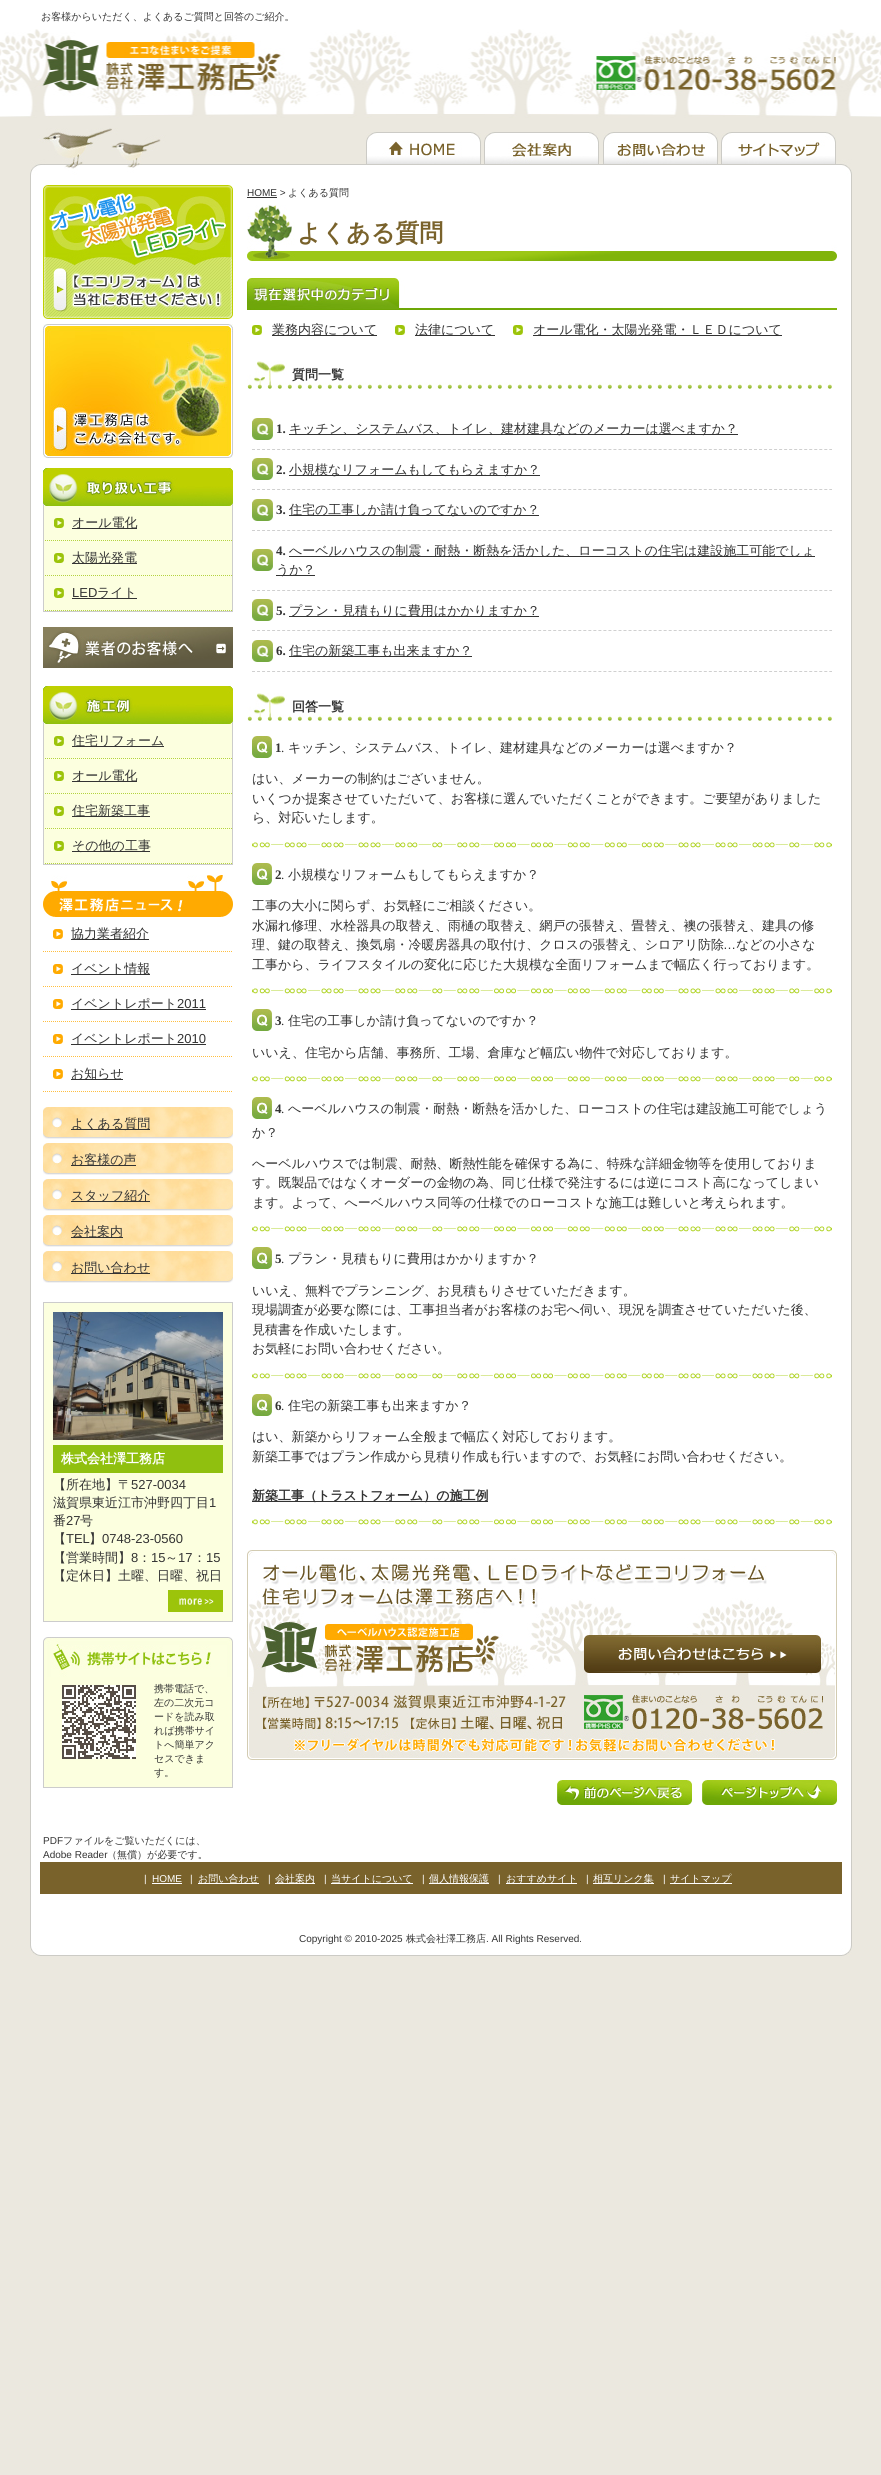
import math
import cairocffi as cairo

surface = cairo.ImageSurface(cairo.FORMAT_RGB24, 881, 2475)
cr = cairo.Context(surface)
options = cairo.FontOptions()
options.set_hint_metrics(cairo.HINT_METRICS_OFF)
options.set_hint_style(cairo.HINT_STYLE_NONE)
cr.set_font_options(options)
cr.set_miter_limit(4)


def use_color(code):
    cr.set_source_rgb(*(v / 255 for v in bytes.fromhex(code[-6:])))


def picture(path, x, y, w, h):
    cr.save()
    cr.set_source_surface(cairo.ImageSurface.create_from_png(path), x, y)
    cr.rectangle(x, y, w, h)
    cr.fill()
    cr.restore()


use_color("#ebe8df")
cr.paint()
use_color("#ffffff")
cr.rectangle(0, 0, 881, 29)
cr.fill()
picture("img1.png", 0, 29, 881, 89)
cr.select_font_face("WenQuanYi Zen Hei Medium")
cr.set_font_size(10)
use_color("#333333")
cr.move_to(41, 20)
cr.show_text("お客様からいただく、よくあるご質問と回答のご紹介。")
picture("img2.png", 30, 128, 822, 47)
picture("img3.png", 366, 132, 115, 32)
picture("img4.png", 484, 132, 115, 32)
picture("img5.png", 603, 132, 115, 32)
picture("img6.png", 721, 132, 115, 32)
use_color("#ffffff")
cr.rectangle(31, 175, 820, 1687)
cr.fill()
use_color("#cccbc5")
cr.rectangle(851, 175, 1, 1687)
cr.fill()
cr.rectangle(30, 175, 1, 1687)
cr.fill()
picture("img7.png", 43, 185, 190, 134)
picture("img8.png", 43, 324, 190, 134)
picture("img9.png", 43, 468, 190, 38)
use_color("#cccccc")
cr.rectangle(43, 611, 190, 1)
cr.fill()
use_color("#fcffdf")
cr.rectangle(44, 506, 188, 105)
cr.fill()
use_color("#cccccc")
cr.rectangle(232, 506, 1, 105)
cr.fill()
cr.new_path()
cr.move_to(43, 540.5)
cr.line_to(233, 540.5)
use_color("#b4d33f")
cr.set_line_width(1)
cr.set_dash([1, 1])
cr.stroke()
use_color("#cccccc")
cr.rectangle(43, 506, 1, 35)
cr.fill()
picture("img10.png", 54, 518, 10, 10)
use_color("#333333")
cr.rectangle(72, 528, 65, 1)
cr.fill()
cr.set_font_size(13)
cr.move_to(72, 527)
cr.show_text("オール電化")
cr.new_path()
cr.move_to(43, 575.5)
cr.line_to(233, 575.5)
use_color("#b4d33f")
cr.stroke()
use_color("#cccccc")
cr.rectangle(43, 541, 1, 35)
cr.fill()
picture("img10.png", 54, 553, 10, 10)
use_color("#333333")
cr.rectangle(72, 563, 65, 1)
cr.fill()
cr.move_to(72, 562)
cr.show_text("太陽光発電")
cr.new_path()
cr.move_to(43, 610.5)
cr.line_to(233, 610.5)
use_color("#b4d33f")
cr.stroke()
use_color("#cccccc")
cr.rectangle(43, 576, 1, 35)
cr.fill()
picture("img10.png", 54, 588, 10, 10)
cr.select_font_face("Liberation Sans")
use_color("#333333")
cr.move_to(72, 597)
cr.show_text("LED")
cr.rectangle(72, 598, 65, 1)
cr.fill()
cr.select_font_face("WenQuanYi Zen Hei Medium")
cr.move_to(97, 597)
cr.show_text("ライト")
picture("img11.png", 43, 627, 190, 41)
picture("img12.png", 43, 686, 190, 38)
use_color("#cccccc")
cr.rectangle(43, 864, 190, 1)
cr.fill()
use_color("#fcffdf")
cr.rectangle(44, 724, 188, 140)
cr.fill()
use_color("#cccccc")
cr.rectangle(232, 724, 1, 140)
cr.fill()
cr.new_path()
cr.move_to(43, 758.5)
cr.line_to(233, 758.5)
use_color("#b4d33f")
cr.stroke()
use_color("#cccccc")
cr.rectangle(43, 724, 1, 35)
cr.fill()
picture("img10.png", 54, 736, 10, 10)
use_color("#333333")
cr.rectangle(72, 746, 92, 1)
cr.fill()
cr.move_to(72, 745)
cr.show_text("住宅リフォーム")
cr.new_path()
cr.move_to(43, 793.5)
cr.line_to(233, 793.5)
use_color("#b4d33f")
cr.stroke()
use_color("#cccccc")
cr.rectangle(43, 759, 1, 35)
cr.fill()
picture("img10.png", 54, 771, 10, 10)
use_color("#333333")
cr.rectangle(72, 781, 65, 1)
cr.fill()
cr.move_to(72, 780)
cr.show_text("オール電化")
cr.new_path()
cr.move_to(43, 828.5)
cr.line_to(233, 828.5)
use_color("#b4d33f")
cr.stroke()
use_color("#cccccc")
cr.rectangle(43, 794, 1, 35)
cr.fill()
picture("img10.png", 54, 806, 10, 10)
use_color("#333333")
cr.rectangle(72, 816, 78, 1)
cr.fill()
cr.move_to(72, 815)
cr.show_text("住宅新築工事")
cr.new_path()
cr.move_to(43, 863.5)
cr.line_to(233, 863.5)
use_color("#b4d33f")
cr.stroke()
use_color("#cccccc")
cr.rectangle(43, 829, 1, 35)
cr.fill()
picture("img10.png", 54, 841, 10, 10)
use_color("#333333")
cr.rectangle(72, 851, 78, 1)
cr.fill()
cr.move_to(72, 850)
cr.show_text("その他の工事")
picture("img13.png", 43, 875, 190, 42)
cr.new_path()
cr.move_to(43, 951.5)
cr.line_to(233, 951.5)
use_color("#ffbf40")
cr.stroke()
picture("img14.png", 53, 929, 10, 10)
use_color("#333333")
cr.rectangle(71, 939, 78, 1)
cr.fill()
cr.move_to(71, 938)
cr.show_text("協力業者紹介")
cr.new_path()
cr.move_to(43, 986.5)
cr.line_to(233, 986.5)
use_color("#ffbf40")
cr.stroke()
picture("img14.png", 53, 964, 10, 10)
use_color("#333333")
cr.rectangle(71, 974, 79, 1)
cr.fill()
cr.move_to(71, 973)
cr.show_text("イベント情報")
cr.new_path()
cr.move_to(43, 1021.5)
cr.line_to(233, 1021.5)
use_color("#ffbf40")
cr.stroke()
picture("img14.png", 53, 999, 10, 10)
use_color("#333333")
cr.rectangle(71, 1009, 135, 1)
cr.fill()
cr.move_to(71, 1008)
cr.show_text("イベントレポート")
cr.select_font_face("Liberation Sans")
cr.move_to(177, 1008)
cr.show_text("2011")
cr.new_path()
cr.move_to(43, 1056.5)
cr.line_to(233, 1056.5)
use_color("#ffbf40")
cr.stroke()
picture("img14.png", 53, 1034, 10, 10)
use_color("#333333")
cr.rectangle(71, 1044, 135, 1)
cr.fill()
cr.select_font_face("WenQuanYi Zen Hei Medium")
cr.move_to(71, 1043)
cr.show_text("イベントレポート")
cr.select_font_face("Liberation Sans")
cr.move_to(177, 1043)
cr.show_text("2010")
cr.new_path()
cr.move_to(43, 1091.5)
cr.line_to(233, 1091.5)
use_color("#ffbf40")
cr.stroke()
picture("img14.png", 53, 1069, 10, 10)
use_color("#333333")
cr.rectangle(71, 1079, 52, 1)
cr.fill()
cr.select_font_face("WenQuanYi Zen Hei Medium")
cr.move_to(71, 1078)
cr.show_text("お知らせ")
picture("img15.png", 43, 1107, 190, 32)
cr.rectangle(71, 1129, 79, 1)
cr.fill()
cr.move_to(71, 1128)
cr.show_text("よくある質問")
picture("img15.png", 43, 1143, 190, 32)
cr.rectangle(71, 1165, 65, 1)
cr.fill()
cr.move_to(71, 1164)
cr.show_text("お客様の声")
picture("img15.png", 43, 1179, 190, 32)
cr.rectangle(71, 1201, 79, 1)
cr.fill()
cr.move_to(71, 1200)
cr.show_text("スタッフ紹介")
picture("img15.png", 43, 1215, 190, 32)
cr.rectangle(71, 1237, 52, 1)
cr.fill()
cr.move_to(71, 1236)
cr.show_text("会社案内")
picture("img15.png", 43, 1251, 190, 32)
cr.rectangle(71, 1273, 79, 1)
cr.fill()
cr.move_to(71, 1272)
cr.show_text("お問い合わせ")
cr.rectangle(43.5, 1302.5, 189, 319)
use_color("#cccccc")
cr.set_dash([])
cr.stroke()
use_color("#fcffdf")
cr.rectangle(44, 1303, 188, 318)
cr.fill()
picture("img16.png", 53, 1312, 170, 128)
use_color("#90c00f")
cr.rectangle(53, 1445, 170, 28)
cr.fill()
cr.select_font_face("WenQuanYi Zen Hei", cairo.FONT_SLANT_NORMAL, cairo.FONT_WEIGHT_BOLD)
use_color("#ffffff")
cr.move_to(61, 1463)
cr.show_text("株式会社澤工務店")
cr.select_font_face("WenQuanYi Zen Hei Medium")
use_color("#333333")
cr.move_to(53, 1489)
cr.show_text("【所在地】〒")
cr.select_font_face("Liberation Sans")
cr.move_to(131, 1489)
cr.show_text("527-0034")
cr.select_font_face("WenQuanYi Zen Hei Medium")
cr.move_to(53, 1507)
cr.show_text("滋賀県東近江市沖野四丁目")
cr.select_font_face("Liberation Sans")
cr.move_to(209, 1507)
cr.show_text("1")
cr.select_font_face("WenQuanYi Zen Hei Medium")
cr.move_to(53, 1525)
cr.show_text("番")
cr.select_font_face("Liberation Sans")
cr.move_to(66, 1525)
cr.show_text("27")
cr.select_font_face("WenQuanYi Zen Hei Medium")
cr.move_to(80, 1525)
cr.show_text("号")
cr.move_to(53, 1543)
cr.show_text("【")
cr.select_font_face("Liberation Sans")
cr.move_to(66, 1543)
cr.show_text("TEL")
cr.select_font_face("WenQuanYi Zen Hei Medium")
cr.move_to(89, 1543)
cr.show_text("】")
cr.select_font_face("Liberation Sans")
cr.move_to(102, 1543)
cr.show_text("0748-23-0560")
cr.select_font_face("WenQuanYi Zen Hei Medium")
cr.move_to(53, 1562)
cr.show_text("【営業時間】")
cr.select_font_face("Liberation Sans")
cr.move_to(131, 1562)
cr.show_text("8")
cr.select_font_face("WenQuanYi Zen Hei Medium")
cr.move_to(138, 1562)
cr.show_text("：")
cr.select_font_face("Liberation Sans")
cr.move_to(151, 1562)
cr.show_text("15")
cr.select_font_face("WenQuanYi Zen Hei Medium")
cr.move_to(165, 1562)
cr.show_text("～")
cr.select_font_face("Liberation Sans")
cr.move_to(178, 1562)
cr.show_text("17")
cr.select_font_face("WenQuanYi Zen Hei Medium")
cr.move_to(193, 1562)
cr.show_text("：")
cr.select_font_face("Liberation Sans")
cr.move_to(206, 1562)
cr.show_text("15")
cr.select_font_face("WenQuanYi Zen Hei Medium")
cr.move_to(53, 1580)
cr.show_text("【定休日】土曜、日曜、祝日")
picture("img17.png", 168, 1590, 55, 22)
picture("img18.png", 43, 1637, 190, 40)
use_color("#fcffdf")
cr.rectangle(44, 1677, 188, 110)
cr.fill()
use_color("#cccccc")
cr.rectangle(232, 1677, 1, 111)
cr.fill()
cr.rectangle(43, 1787, 190, 1)
cr.fill()
cr.rectangle(43, 1677, 1, 111)
cr.fill()
picture("img19.png", 61, 1685, 76, 74)
cr.set_font_size(10)
use_color("#333333")
cr.move_to(154, 1692)
cr.show_text("携帯電話で、")
cr.move_to(154, 1706)
cr.show_text("左の二次元コ")
cr.move_to(154, 1720)
cr.show_text("ードを読み取")
cr.move_to(154, 1734)
cr.show_text("れば携帯サイ")
cr.move_to(154, 1748)
cr.show_text("トへ簡単アク")
cr.move_to(154, 1762)
cr.show_text("セスできま")
cr.move_to(154, 1776)
cr.show_text("す。")
cr.select_font_face("Liberation Sans")
cr.move_to(43, 1844)
cr.show_text("PDF")
cr.select_font_face("WenQuanYi Zen Hei Medium")
cr.move_to(63, 1844)
cr.show_text("ファイルをご覧いただくには、")
cr.select_font_face("Liberation Sans")
cr.move_to(43, 1858)
cr.show_text("Adobe Reader")
cr.select_font_face("WenQuanYi Zen Hei Medium")
cr.move_to(107, 1858)
cr.show_text("（無償）が必要です。")
cr.select_font_face("Liberation Sans")
cr.move_to(247, 196)
cr.show_text("HOME >")
cr.rectangle(247, 197, 30, 1)
cr.fill()
cr.select_font_face("WenQuanYi Zen Hei Medium")
cr.move_to(288, 196)
cr.show_text("よくある質問")
picture("img20.png", 247, 205, 590, 56)
cr.select_font_face("WenQuanYi Zen Hei", cairo.FONT_SLANT_NORMAL, cairo.FONT_WEIGHT_BOLD)
cr.set_font_size(24)
use_color("#79622b")
cr.move_to(297, 241)
cr.show_text("よくある質問")
picture("img21.png", 247, 278, 590, 32)
picture("img10.png", 252, 325, 10, 10)
use_color("#333333")
cr.rectangle(272, 335, 105, 1)
cr.fill()
cr.select_font_face("WenQuanYi Zen Hei Medium")
cr.set_font_size(13)
cr.move_to(272, 334)
cr.show_text("業務内容について")
picture("img10.png", 395, 325, 10, 10)
cr.rectangle(415, 335, 80, 1)
cr.fill()
cr.move_to(415, 334)
cr.show_text("法律について")
picture("img10.png", 513, 325, 10, 10)
cr.rectangle(533, 335, 249, 1)
cr.fill()
cr.move_to(533, 334)
cr.show_text("オール電化・太陽光発電・ＬＥＤについて")
picture("img22.png", 247, 361, 585, 28)
cr.select_font_face("WenQuanYi Zen Hei", cairo.FONT_SLANT_NORMAL, cairo.FONT_WEIGHT_BOLD)
cr.move_to(292, 379)
cr.show_text("質問一覧")
picture("img23.png", 252, 418, 21, 22)
cr.new_path()
cr.move_to(252, 449.5)
cr.line_to(832, 449.5)
use_color("#d0d0d0")
cr.set_dash([3, 2.02])
cr.stroke()
cr.select_font_face("Liberation Serif", cairo.FONT_SLANT_NORMAL, cairo.FONT_WEIGHT_BOLD)
use_color("#333333")
cr.move_to(276, 433)
cr.show_text("1.")
cr.rectangle(289, 434, 449, 1)
cr.fill()
cr.select_font_face("WenQuanYi Zen Hei Medium")
cr.move_to(289, 433)
cr.show_text("キッチン、システムバス、トイレ、建材建具などのメーカーは選べますか？")
picture("img23.png", 252, 458, 21, 22)
cr.new_path()
cr.move_to(252, 489.5)
cr.line_to(832, 489.5)
use_color("#d0d0d0")
cr.stroke()
cr.select_font_face("Liberation Serif", cairo.FONT_SLANT_NORMAL, cairo.FONT_WEIGHT_BOLD)
use_color("#333333")
cr.move_to(276, 474)
cr.show_text("2.")
cr.rectangle(289, 475, 251, 1)
cr.fill()
cr.select_font_face("WenQuanYi Zen Hei Medium")
cr.move_to(289, 474)
cr.show_text("小規模なリフォームもしてもらえますか？")
picture("img23.png", 252, 499, 21, 22)
cr.new_path()
cr.move_to(252, 530.5)
cr.line_to(832, 530.5)
use_color("#d0d0d0")
cr.stroke()
cr.select_font_face("Liberation Serif", cairo.FONT_SLANT_NORMAL, cairo.FONT_WEIGHT_BOLD)
use_color("#333333")
cr.move_to(276, 514)
cr.show_text("3.")
cr.rectangle(289, 515, 250, 1)
cr.fill()
cr.select_font_face("WenQuanYi Zen Hei Medium")
cr.move_to(289, 514)
cr.show_text("住宅の工事しか請け負ってないのですか？")
picture("img23.png", 252, 549, 21, 22)
cr.new_path()
cr.move_to(252, 590.5)
cr.line_to(832, 590.5)
use_color("#d0d0d0")
cr.stroke()
cr.select_font_face("Liberation Serif", cairo.FONT_SLANT_NORMAL, cairo.FONT_WEIGHT_BOLD)
use_color("#333333")
cr.move_to(276, 555)
cr.show_text("4.")
cr.rectangle(289, 556, 526, 1)
cr.fill()
cr.select_font_face("WenQuanYi Zen Hei Medium")
cr.move_to(289, 555)
cr.show_text("へーベルハウスの制震・耐熱・断熱を活かした、ローコストの住宅は建設施工可能でしょ")
cr.rectangle(276, 575, 39, 1)
cr.fill()
cr.move_to(276, 574)
cr.show_text("うか？")
picture("img23.png", 252, 599, 21, 22)
cr.new_path()
cr.move_to(252, 630.5)
cr.line_to(832, 630.5)
use_color("#d0d0d0")
cr.stroke()
cr.select_font_face("Liberation Serif", cairo.FONT_SLANT_NORMAL, cairo.FONT_WEIGHT_BOLD)
use_color("#333333")
cr.move_to(276, 615)
cr.show_text("5.")
cr.rectangle(289, 616, 250, 1)
cr.fill()
cr.select_font_face("WenQuanYi Zen Hei Medium")
cr.move_to(289, 615)
cr.show_text("プラン・見積もりに費用はかかりますか？")
picture("img23.png", 252, 640, 21, 22)
cr.new_path()
cr.move_to(252, 671.5)
cr.line_to(832, 671.5)
use_color("#d0d0d0")
cr.stroke()
cr.select_font_face("Liberation Serif", cairo.FONT_SLANT_NORMAL, cairo.FONT_WEIGHT_BOLD)
use_color("#333333")
cr.move_to(276, 655)
cr.show_text("6.")
cr.rectangle(289, 656, 183, 1)
cr.fill()
cr.select_font_face("WenQuanYi Zen Hei Medium")
cr.move_to(289, 655)
cr.show_text("住宅の新築工事も出来ますか？")
picture("img22.png", 247, 693, 585, 28)
cr.select_font_face("WenQuanYi Zen Hei", cairo.FONT_SLANT_NORMAL, cairo.FONT_WEIGHT_BOLD)
cr.move_to(292, 711)
cr.show_text("回答一覧")
picture("img24.png", 252, 842, 580, 6)
picture("img25.png", 252, 736, 20, 22)
cr.select_font_face("Liberation Serif", cairo.FONT_SLANT_NORMAL, cairo.FONT_WEIGHT_BOLD)
cr.move_to(275, 752)
cr.show_text("1")
cr.select_font_face("Liberation Serif")
cr.move_to(281, 752)
cr.show_text(".")
cr.select_font_face("WenQuanYi Zen Hei Medium")
cr.move_to(288, 752)
cr.show_text("キッチン、システムバス、トイレ、建材建具などのメーカーは選べますか？")
cr.move_to(252, 783)
cr.show_text("はい、メーカーの制約はございません。")
cr.move_to(252, 803)
cr.show_text("いくつか提案させていただいて、お客様に選んでいただくことができます。ご要望がありました")
cr.move_to(252, 822)
cr.show_text("ら、対応いたします。")
picture("img24.png", 252, 988, 580, 6)
picture("img25.png", 252, 863, 20, 22)
cr.select_font_face("Liberation Serif", cairo.FONT_SLANT_NORMAL, cairo.FONT_WEIGHT_BOLD)
cr.move_to(275, 879)
cr.show_text("2")
cr.select_font_face("Liberation Serif")
cr.move_to(281, 879)
cr.show_text(".")
cr.select_font_face("WenQuanYi Zen Hei Medium")
cr.move_to(288, 879)
cr.show_text("小規模なリフォームもしてもらえますか？")
cr.move_to(252, 910)
cr.show_text("工事の大小に関らず、お気軽にご相談ください。")
cr.move_to(252, 930)
cr.show_text("水漏れ修理、水栓器具の取替え、雨樋の取替え、網戸の張替え、畳替え、襖の張替え、建具の修")
cr.move_to(252, 949)
cr.show_text("理、鍵の取替え、換気扇・冷暖房器具の取付け、クロスの張替え、シロアリ防除")
cr.select_font_face("Liberation Sans")
cr.move_to(723, 949)
cr.show_text("…")
cr.select_font_face("WenQuanYi Zen Hei Medium")
cr.move_to(736, 949)
cr.show_text("などの小さな")
cr.move_to(252, 969)
cr.show_text("工事から、ライフスタイルの変化に応じた大規模な全面リフォームまで幅広く行っております。")
picture("img24.png", 252, 1076, 580, 6)
picture("img25.png", 252, 1009, 20, 22)
cr.select_font_face("Liberation Serif", cairo.FONT_SLANT_NORMAL, cairo.FONT_WEIGHT_BOLD)
cr.move_to(275, 1025)
cr.show_text("3")
cr.select_font_face("Liberation Serif")
cr.move_to(281, 1025)
cr.show_text(".")
cr.select_font_face("WenQuanYi Zen Hei Medium")
cr.move_to(288, 1025)
cr.show_text("住宅の工事しか請け負ってないのですか？")
cr.move_to(252, 1057)
cr.show_text("いいえ、住宅から店舗、事務所、工場、倉庫など幅広い物件で対応しております。")
picture("img24.png", 252, 1226, 580, 6)
picture("img25.png", 252, 1097, 20, 22)
cr.select_font_face("Liberation Serif", cairo.FONT_SLANT_NORMAL, cairo.FONT_WEIGHT_BOLD)
cr.move_to(275, 1113)
cr.show_text("4")
cr.select_font_face("Liberation Serif")
cr.move_to(281, 1113)
cr.show_text(".")
cr.select_font_face("WenQuanYi Zen Hei Medium")
cr.move_to(288, 1113)
cr.show_text("へーベルハウスの制震・耐熱・断熱を活かした、ローコストの住宅は建設施工可能でしょう")
cr.move_to(252, 1137)
cr.show_text("か？")
cr.move_to(252, 1168)
cr.show_text("へーベルハウスでは制震、耐熱、断熱性能を確保する為に、特殊な詳細金物等を使用しておりま")
cr.move_to(252, 1187)
cr.show_text("す。既製品ではなくオーダーの金物の為、同じ仕様で発注するには逆にコスト高になってしまい")
cr.move_to(252, 1207)
cr.show_text("ます。よって、へーベルハウス同等の仕様でのローコストな施工は難しいと考えられます。")
picture("img24.png", 252, 1373, 580, 6)
picture("img25.png", 252, 1247, 20, 22)
cr.select_font_face("Liberation Serif", cairo.FONT_SLANT_NORMAL, cairo.FONT_WEIGHT_BOLD)
cr.move_to(275, 1263)
cr.show_text("5")
cr.select_font_face("Liberation Serif")
cr.move_to(281, 1263)
cr.show_text(".")
cr.select_font_face("WenQuanYi Zen Hei Medium")
cr.move_to(288, 1263)
cr.show_text("プラン・見積もりに費用はかかりますか？")
cr.move_to(252, 1295)
cr.show_text("いいえ、無料でプランニング、お見積もりさせていただきます。")
cr.move_to(252, 1314)
cr.show_text("現場調査が必要な際には、工事担当者がお客様のお宅へ伺い、現況を調査させていただいた後、")
cr.move_to(252, 1334)
cr.show_text("見積書を作成いたします。")
cr.move_to(252, 1353)
cr.show_text("お気軽にお問い合わせください。")
picture("img24.png", 252, 1519, 580, 6)
picture("img25.png", 252, 1394, 20, 22)
cr.select_font_face("Liberation Serif", cairo.FONT_SLANT_NORMAL, cairo.FONT_WEIGHT_BOLD)
cr.move_to(275, 1410)
cr.show_text("6")
cr.select_font_face("Liberation Serif")
cr.move_to(281, 1410)
cr.show_text(".")
cr.select_font_face("WenQuanYi Zen Hei Medium")
cr.move_to(288, 1410)
cr.show_text("住宅の新築工事も出来ますか？")
cr.move_to(252, 1441)
cr.show_text("はい、新築からリフォーム全般まで幅広く対応しております。")
cr.move_to(252, 1461)
cr.show_text("新築工事ではプラン作成から見積り作成も行いますので、お気軽にお問い合わせください。")
cr.rectangle(252, 1501, 236, 1)
cr.fill()
cr.select_font_face("WenQuanYi Zen Hei", cairo.FONT_SLANT_NORMAL, cairo.FONT_WEIGHT_BOLD)
cr.move_to(252, 1500)
cr.show_text("新築工事（トラストフォーム）の施工例")
picture("img26.png", 247, 1550, 590, 210)
picture("img27.png", 557, 1780, 135, 25)
picture("img28.png", 702, 1780, 135, 25)
picture("img29.png", 30, 1862, 822, 94)
use_color("#79622b")
cr.rectangle(40, 1862, 802, 32)
cr.fill()
cr.select_font_face("Liberation Sans")
cr.set_font_size(10)
use_color("#ffffff")
cr.move_to(144, 1882)
cr.show_text("|")
cr.move_to(152, 1882)
cr.show_text("HOME")
cr.rectangle(152, 1883, 30, 1)
cr.fill()
cr.move_to(190, 1882)
cr.show_text("|")
cr.rectangle(198, 1883, 61, 1)
cr.fill()
cr.select_font_face("WenQuanYi Zen Hei Medium")
cr.move_to(198, 1882)
cr.show_text("お問い合わせ")
cr.select_font_face("Liberation Sans")
cr.move_to(268, 1882)
cr.show_text("|")
cr.rectangle(275, 1883, 40, 1)
cr.fill()
cr.select_font_face("WenQuanYi Zen Hei Medium")
cr.move_to(275, 1882)
cr.show_text("会社案内")
cr.select_font_face("Liberation Sans")
cr.move_to(324, 1882)
cr.show_text("|")
cr.rectangle(331, 1883, 82, 1)
cr.fill()
cr.select_font_face("WenQuanYi Zen Hei Medium")
cr.move_to(331, 1882)
cr.show_text("当サイトについて")
cr.select_font_face("Liberation Sans")
cr.move_to(422, 1882)
cr.show_text("|")
cr.rectangle(429, 1883, 60, 1)
cr.fill()
cr.select_font_face("WenQuanYi Zen Hei Medium")
cr.move_to(429, 1882)
cr.show_text("個人情報保護")
cr.select_font_face("Liberation Sans")
cr.move_to(498, 1882)
cr.show_text("|")
cr.rectangle(506, 1883, 71, 1)
cr.fill()
cr.select_font_face("WenQuanYi Zen Hei Medium")
cr.move_to(506, 1882)
cr.show_text("おすすめサイト")
cr.select_font_face("Liberation Sans")
cr.move_to(586, 1882)
cr.show_text("|")
cr.rectangle(593, 1883, 61, 1)
cr.fill()
cr.select_font_face("WenQuanYi Zen Hei Medium")
cr.move_to(593, 1882)
cr.show_text("相互リンク集")
cr.select_font_face("Liberation Sans")
cr.move_to(663, 1882)
cr.show_text("|")
cr.rectangle(670, 1883, 62, 1)
cr.fill()
cr.select_font_face("WenQuanYi Zen Hei Medium")
cr.move_to(670, 1882)
cr.show_text("サイトマップ")
cr.select_font_face("Liberation Sans")
use_color("#333333")
cr.move_to(299, 1942)
cr.show_text("Copyright © 2010-2025")
cr.select_font_face("WenQuanYi Zen Hei Medium")
cr.move_to(406, 1942)
cr.show_text("株式会社澤工務店")
cr.select_font_face("Liberation Sans")
cr.move_to(486, 1942)
cr.show_text(". All Rights Reserved.")
surface.write_to_png("result.png")
